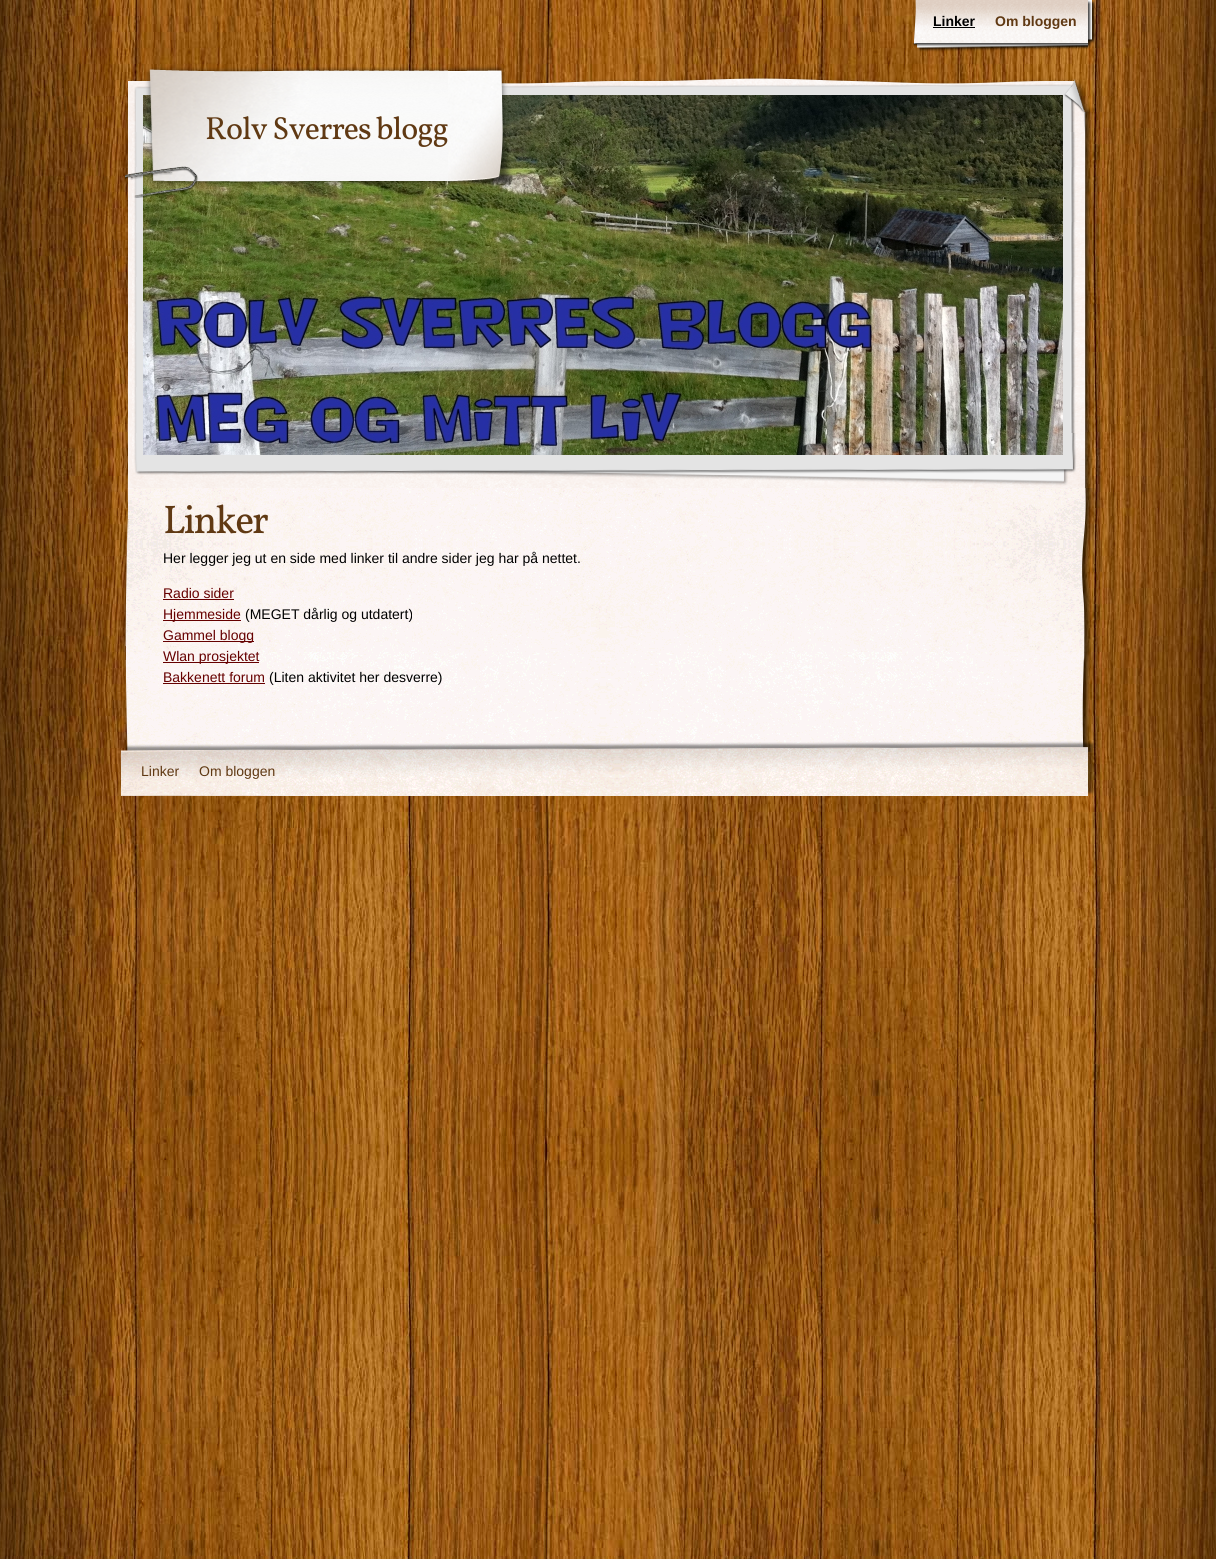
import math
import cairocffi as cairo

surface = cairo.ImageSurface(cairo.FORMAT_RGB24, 1216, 1559)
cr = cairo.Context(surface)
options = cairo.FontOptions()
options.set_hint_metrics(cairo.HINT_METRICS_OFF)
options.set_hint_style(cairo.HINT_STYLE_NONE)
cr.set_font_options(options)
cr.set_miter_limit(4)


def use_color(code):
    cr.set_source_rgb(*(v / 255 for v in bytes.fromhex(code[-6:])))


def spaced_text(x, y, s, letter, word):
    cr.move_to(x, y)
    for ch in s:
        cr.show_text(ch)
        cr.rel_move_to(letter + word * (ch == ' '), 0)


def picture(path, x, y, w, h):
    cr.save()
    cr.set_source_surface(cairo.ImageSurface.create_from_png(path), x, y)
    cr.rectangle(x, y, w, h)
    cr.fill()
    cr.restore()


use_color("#ffffff")
cr.paint()
picture("img1.png", 0, 0, 1216, 1559)
picture("img2.png", 0, 0, 1216, 1559)
picture("img3.png", 914, 0, 9, 44)
picture("img4.png", 1087, 0, 9, 48)
picture("img5.png", 923, 0, 164, 48)
cr.select_font_face("Liberation Sans", cairo.FONT_SLANT_NORMAL, cairo.FONT_WEIGHT_BOLD)
cr.set_font_size(14)
use_color("#000000")
cr.move_to(933, 26)
cr.show_text("Linker")
cr.rectangle(933, 27, 42, 1)
cr.fill()
use_color("#603913")
cr.move_to(995, 26)
cr.show_text("Om bloggen")
picture("img6.png", 912, 43, 176, 9)
picture("img7.png", 125, 112, 969, 376)
picture("img8.png", 126, 77, 967, 55)
picture("img9.png", 131, 433, 954, 55)
picture("img10.png", 143, 95, 920, 360)
picture("img11.png", 448, 65, 67, 122)
picture("img12.png", 125, 67, 323, 131)
cr.select_font_face("Vollkorn")
cr.set_font_size(32)
spaced_text(205, 139, "Rolv Sverres blogg", -1, 0)
picture("img13.png", 123, 488, 972, 264)
cr.set_font_size(40)
spaced_text(163, 533, "Linker", -2, 0)
cr.select_font_face("Liberation Sans")
cr.set_font_size(14)
use_color("#000000")
cr.move_to(163, 563)
cr.show_text("Her legger jeg ut en side med linker til andre sider jeg har på nettet.")
use_color("#660000")
cr.move_to(163, 598)
cr.show_text("Radio sider")
cr.rectangle(163, 599, 71, 1)
cr.fill()
cr.rectangle(163, 620, 78, 1)
cr.fill()
cr.move_to(163, 619)
cr.show_text("Hjemmeside")
use_color("#000000")
cr.move_to(245, 619)
cr.show_text("(MEGET dårlig og utdatert)")
use_color("#660000")
cr.rectangle(163, 641, 91, 1)
cr.fill()
cr.move_to(163, 640)
cr.show_text("Gammel blogg")
cr.rectangle(163, 662, 96, 1)
cr.fill()
cr.move_to(163, 661)
cr.show_text("Wlan prosjektet")
cr.move_to(163, 682)
cr.show_text("Bakkenett forum")
cr.rectangle(163, 683, 102, 1)
cr.fill()
use_color("#000000")
cr.move_to(269, 682)
cr.show_text("(Liten aktivitet her desverre)")
picture("img14.png", 121, 741, 974, 55)
use_color("#603913")
cr.move_to(141, 776)
cr.show_text("Linker")
cr.move_to(199, 776)
cr.show_text("Om bloggen")
surface.write_to_png("result.png")
